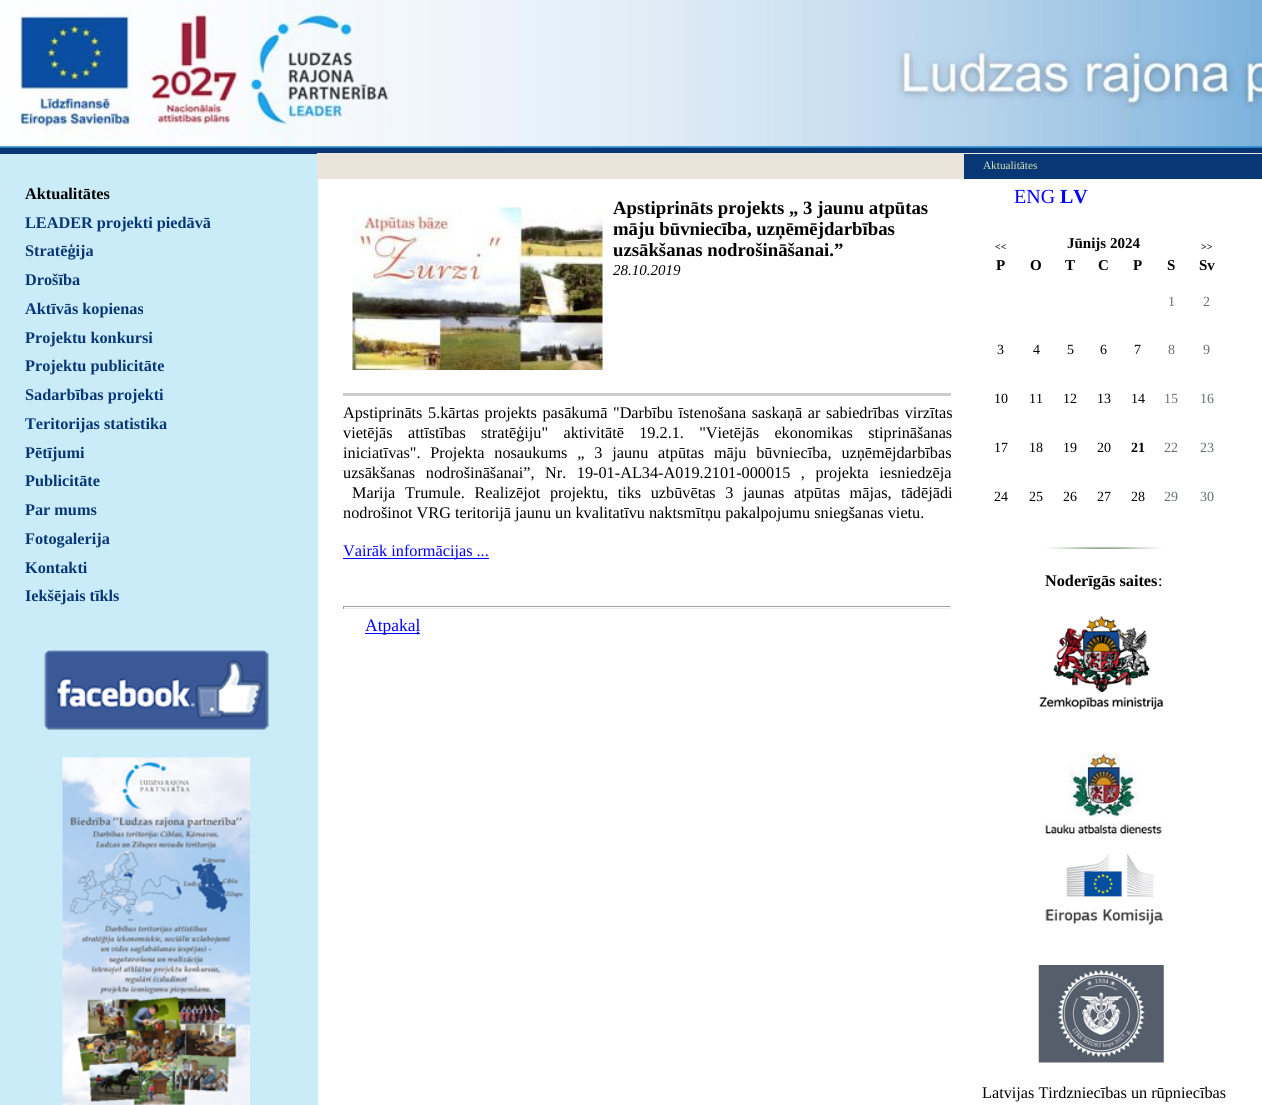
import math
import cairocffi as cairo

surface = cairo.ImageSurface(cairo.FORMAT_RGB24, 1262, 1105)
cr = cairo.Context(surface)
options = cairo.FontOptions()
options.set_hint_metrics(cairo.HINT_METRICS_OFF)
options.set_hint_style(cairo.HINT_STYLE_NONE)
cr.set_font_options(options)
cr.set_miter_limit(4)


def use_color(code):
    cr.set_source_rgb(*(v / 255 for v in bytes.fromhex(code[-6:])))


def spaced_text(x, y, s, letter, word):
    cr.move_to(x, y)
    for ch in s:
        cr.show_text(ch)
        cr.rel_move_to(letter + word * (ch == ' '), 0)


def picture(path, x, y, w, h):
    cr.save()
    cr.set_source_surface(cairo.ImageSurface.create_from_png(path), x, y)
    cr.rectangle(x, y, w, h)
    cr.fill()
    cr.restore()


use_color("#ffffff")
cr.paint()
picture("img1.png", 0, 154, 319, 951)
use_color("#2485c7")
cr.rectangle(0, 146, 1262, 2)
cr.fill()
picture("img2.png", 0, 0, 1262, 147)
use_color("#093775")
cr.rectangle(0, 148, 1262, 6)
cr.fill()
cr.select_font_face("Liberation Serif", cairo.FONT_SLANT_NORMAL, cairo.FONT_WEIGHT_BOLD)
cr.set_font_size(16.25)
use_color("#000000")
cr.move_to(25, 199)
cr.show_text("Aktualitātes")
use_color("#093775")
cr.move_to(25, 228)
cr.show_text("LEADER projekti piedāvā")
cr.move_to(25, 256)
cr.show_text("Stratēģija")
cr.move_to(25, 285)
cr.show_text("Drošība")
cr.move_to(25, 314)
cr.show_text("Aktīvās kopienas")
cr.move_to(25, 343)
cr.show_text("Projektu konkursi")
cr.move_to(25, 371)
cr.show_text("Projektu publicitāte")
cr.move_to(25, 400)
cr.show_text("Sadarbības projekti")
cr.move_to(25, 429)
cr.show_text("Teritorijas statistika")
cr.move_to(25, 458)
cr.show_text("Pētījumi")
cr.move_to(25, 486)
cr.show_text("Publicitāte")
cr.move_to(25, 515)
cr.show_text("Par mums")
cr.move_to(25, 544)
cr.show_text("Fotogalerija")
cr.move_to(25, 573)
cr.show_text("Kontakti")
cr.move_to(25, 601)
cr.show_text("Iekšējais tīkls")
picture("img3.png", 43, 650, 226, 80)
picture("img4.png", 62, 757, 188, 348)
use_color("#e9e5da")
cr.rectangle(317, 153, 945, 26)
cr.fill()
use_color("#093775")
cr.rectangle(964, 154, 298, 25)
cr.fill()
cr.select_font_face("Liberation Serif")
cr.set_font_size(11.25)
use_color("#dae6ba")
cr.move_to(983, 169)
cr.show_text("Aktualitātes")
picture("img5.png", 352, 207, 251, 163)
cr.select_font_face("Liberation Serif", cairo.FONT_SLANT_NORMAL, cairo.FONT_WEIGHT_BOLD)
cr.set_font_size(18.75)
use_color("#000000")
cr.move_to(613, 214)
cr.show_text("Apstiprināts projekts „ 3 jaunu atpūtas")
cr.move_to(613, 235)
cr.show_text("māju būvniecība, uzņēmējdarbības")
cr.move_to(613, 256)
cr.show_text("uzsākšanas nodrošināšanai.”")
cr.select_font_face("Liberation Serif", cairo.FONT_SLANT_ITALIC)
cr.set_font_size(15)
cr.move_to(613, 275)
cr.show_text("28.10.2019")
use_color("#cccccc")
cr.rectangle(343, 393, 608, 3)
cr.fill()
cr.select_font_face("Liberation Serif")
cr.set_font_size(16.25)
use_color("#000000")
spaced_text(343, 418, "Apstiprināts 5.kārtas projekts pasākumā \"Darbību īstenošana saskaņā ar sabiedrības virzītas", 0, 1.5)
spaced_text(343, 438, "vietējās attīstības stratēģiju\" aktivitātē 19.2.1. \"Vietējās ekonomikas stiprināšanas", 0, 11.25)
spaced_text(343, 458, "iniciatīvas\". Projekta nosaukums „ 3 jaunu atpūtas māju būvniecība, uzņēmējdarbības", 0, 5.75)
spaced_text(343, 478, "uzsākšanas nodrošināšanai”, Nr. 19-01-AL34-A019.2101-000015 , projekta iesniedzēja", 0, 6.5)
spaced_text(352, 498, "Marija Trumule. Realizējot projektu, tiks uzbūvētas 3 jaunas atpūtas mājas, tādējādi", 0, 5.5)
cr.move_to(343, 518)
cr.show_text("nodrošinot VRG teritorijā jaunu un kvalitatīvu naktsmītņu pakalpojumu sniegšanas vietu.")
use_color("#0000ff")
cr.rectangle(343, 558, 146, 1)
cr.fill()
cr.move_to(343, 556)
cr.show_text("Vairāk informācijas ...")
use_color("#9f9f9f")
cr.rectangle(343, 606, 608, 1)
cr.fill()
use_color("#eeeeee")
cr.rectangle(950, 606, 1, 3)
cr.fill()
cr.rectangle(343, 608, 608, 1)
cr.fill()
use_color("#9f9f9f")
cr.rectangle(343, 606, 1, 3)
cr.fill()
use_color("#0000ff")
cr.rectangle(365, 633, 55, 1)
cr.fill()
cr.set_font_size(17.5)
cr.move_to(365, 631)
cr.show_text("Atpakaļ")
cr.set_font_size(20)
cr.move_to(1014, 203)
cr.show_text("ENG")
cr.select_font_face("Liberation Serif", cairo.FONT_SLANT_NORMAL, cairo.FONT_WEIGHT_BOLD)
cr.move_to(1060, 203)
cr.show_text("LV")
cr.set_font_size(10)
use_color("#000000")
cr.move_to(995, 250)
cr.show_text("<<")
cr.set_font_size(15)
cr.move_to(1067, 248)
cr.show_text("Jūnijs 2024")
cr.set_font_size(10)
cr.move_to(1201, 250)
cr.show_text(">>")
cr.set_font_size(15)
cr.move_to(996, 270)
cr.show_text("P")
cr.move_to(1030, 270)
cr.show_text("O")
cr.move_to(1065, 270)
cr.show_text("T")
cr.move_to(1098, 270)
cr.show_text("C")
cr.move_to(1133, 270)
cr.show_text("P")
cr.move_to(1167, 270)
cr.show_text("S")
cr.move_to(1199, 270)
cr.show_text("Sv")
cr.select_font_face("Liberation Serif")
cr.set_font_size(14)
use_color("#667171")
cr.move_to(1168, 306)
cr.show_text("1")
cr.move_to(1203, 306)
cr.show_text("2")
use_color("#000000")
cr.move_to(997, 354)
cr.show_text("3")
cr.move_to(1033, 354)
cr.show_text("4")
cr.move_to(1067, 354)
cr.show_text("5")
cr.move_to(1100, 354)
cr.show_text("6")
cr.move_to(1134, 354)
cr.show_text("7")
use_color("#667171")
cr.move_to(1168, 354)
cr.show_text("8")
cr.move_to(1203, 354)
cr.show_text("9")
use_color("#000000")
cr.move_to(994, 403)
cr.show_text("10")
cr.move_to(1029, 403)
cr.show_text("11")
cr.move_to(1063, 403)
cr.show_text("12")
cr.move_to(1097, 403)
cr.show_text("13")
cr.move_to(1131, 403)
cr.show_text("14")
use_color("#667171")
cr.move_to(1164, 403)
cr.show_text("15")
cr.move_to(1200, 403)
cr.show_text("16")
use_color("#000000")
cr.move_to(994, 452)
cr.show_text("17")
cr.move_to(1029, 452)
cr.show_text("18")
cr.move_to(1063, 452)
cr.show_text("19")
cr.move_to(1097, 452)
cr.show_text("20")
cr.select_font_face("Liberation Serif", cairo.FONT_SLANT_NORMAL, cairo.FONT_WEIGHT_BOLD)
cr.move_to(1131, 452)
cr.show_text("21")
cr.select_font_face("Liberation Serif")
use_color("#667171")
cr.move_to(1164, 452)
cr.show_text("22")
cr.move_to(1200, 452)
cr.show_text("23")
use_color("#000000")
cr.move_to(994, 501)
cr.show_text("24")
cr.move_to(1029, 501)
cr.show_text("25")
cr.move_to(1063, 501)
cr.show_text("26")
cr.move_to(1097, 501)
cr.show_text("27")
cr.move_to(1131, 501)
cr.show_text("28")
use_color("#667171")
cr.move_to(1164, 501)
cr.show_text("29")
cr.move_to(1200, 501)
cr.show_text("30")
picture("img6.png", 1046, 545, 116, 6)
cr.select_font_face("Liberation Serif", cairo.FONT_SLANT_NORMAL, cairo.FONT_WEIGHT_BOLD)
cr.set_font_size(16.25)
use_color("#000000")
cr.move_to(1045, 586)
cr.show_text("Noderīgās saites")
cr.select_font_face("Liberation Serif")
cr.move_to(1158, 586)
cr.show_text(":")
picture("img7.png", 1039, 616, 124, 94)
picture("img8.png", 1044, 752, 118, 84)
picture("img9.png", 1045, 853, 118, 72)
picture("img10.png", 1038, 965, 126, 98)
cr.move_to(982, 1098)
cr.show_text("Latvijas Tirdzniecības un rūpniecības")
surface.write_to_png("result.png")
